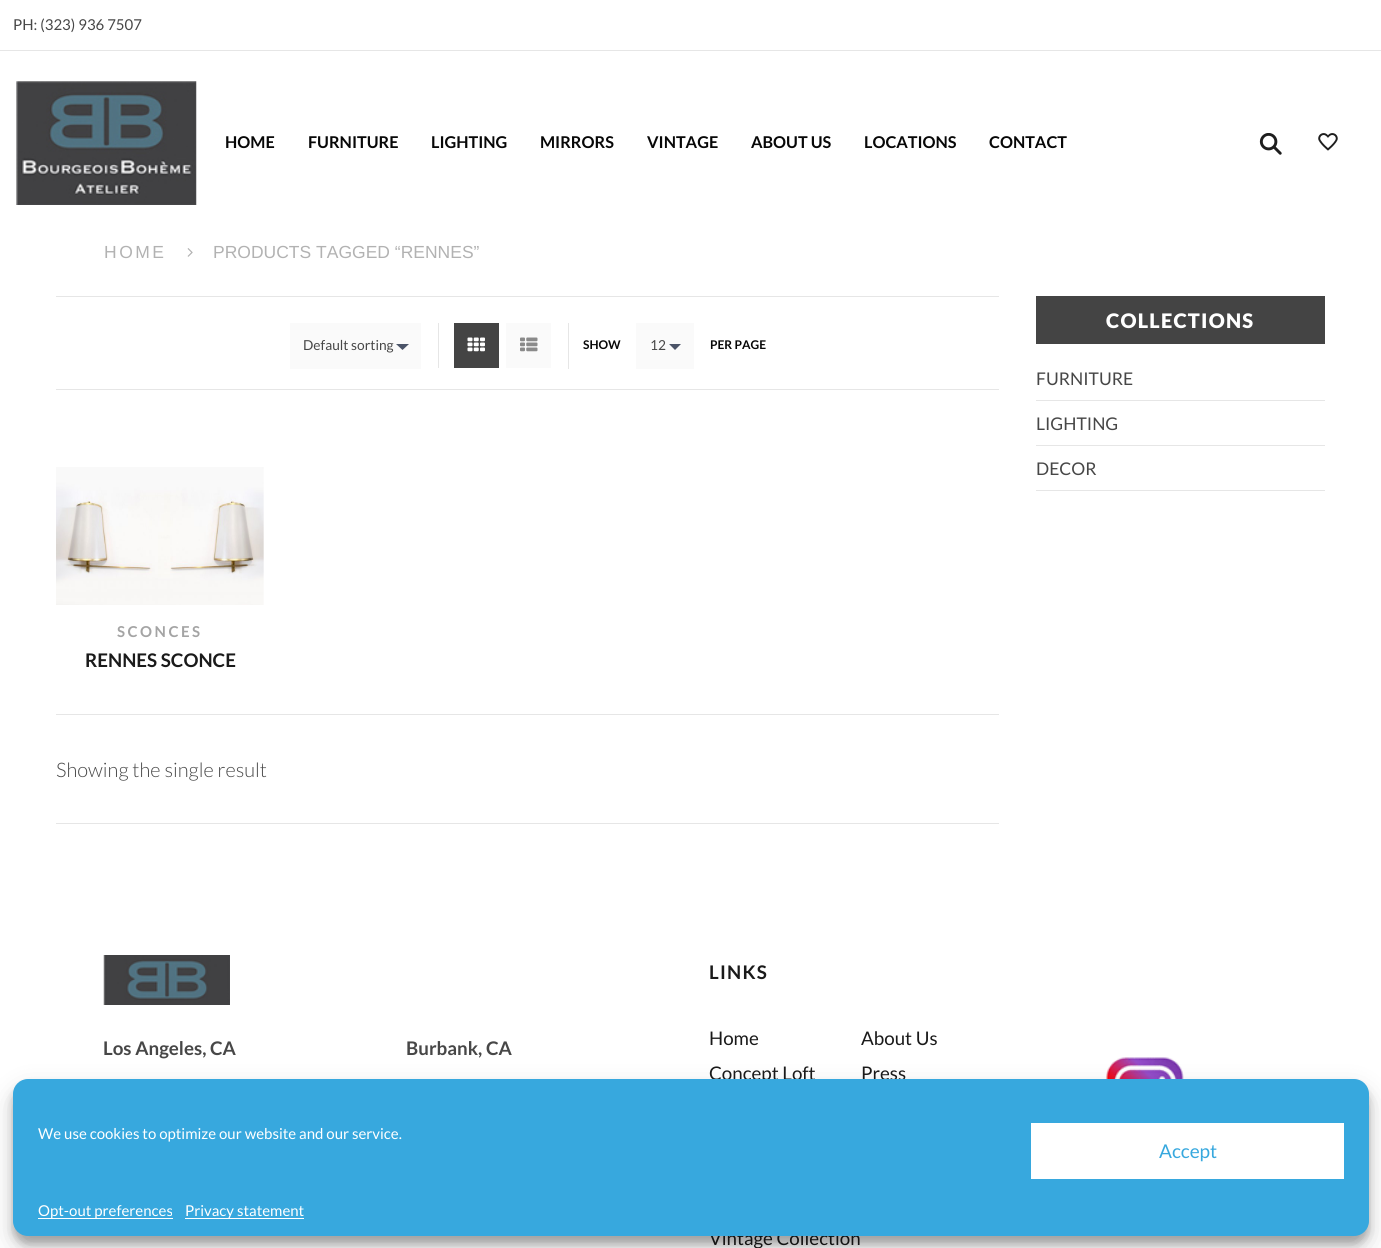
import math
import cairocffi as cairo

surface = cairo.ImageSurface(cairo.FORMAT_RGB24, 1381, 1248)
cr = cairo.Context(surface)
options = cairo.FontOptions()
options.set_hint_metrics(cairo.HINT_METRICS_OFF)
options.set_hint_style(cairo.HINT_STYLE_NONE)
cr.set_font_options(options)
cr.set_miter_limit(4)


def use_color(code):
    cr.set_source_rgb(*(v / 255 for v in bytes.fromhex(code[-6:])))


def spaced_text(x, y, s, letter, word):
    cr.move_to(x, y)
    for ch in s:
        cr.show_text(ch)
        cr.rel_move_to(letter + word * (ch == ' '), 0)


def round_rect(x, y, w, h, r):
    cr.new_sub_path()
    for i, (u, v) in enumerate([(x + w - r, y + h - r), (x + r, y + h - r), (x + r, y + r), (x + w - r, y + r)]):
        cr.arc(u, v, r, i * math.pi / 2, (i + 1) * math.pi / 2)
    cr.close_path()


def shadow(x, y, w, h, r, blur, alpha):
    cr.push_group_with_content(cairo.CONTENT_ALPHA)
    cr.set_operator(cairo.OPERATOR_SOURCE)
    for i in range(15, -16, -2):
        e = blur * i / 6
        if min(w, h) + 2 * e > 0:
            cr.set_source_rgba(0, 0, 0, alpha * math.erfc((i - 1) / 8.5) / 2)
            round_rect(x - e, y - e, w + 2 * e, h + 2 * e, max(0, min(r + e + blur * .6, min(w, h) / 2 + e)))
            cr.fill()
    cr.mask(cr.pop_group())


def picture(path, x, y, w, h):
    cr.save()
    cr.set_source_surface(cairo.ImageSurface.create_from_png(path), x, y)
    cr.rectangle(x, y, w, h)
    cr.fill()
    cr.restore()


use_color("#ffffff")
cr.paint()
use_color("#e6e6e6")
cr.rectangle(0, 50, 1381, 1)
cr.fill()
cr.select_font_face("Lato")
cr.set_font_size(15)
use_color("#474747")
cr.move_to(13, 30)
cr.show_text("PH: (323) 936 7507")
picture("img1.png", 16, 81, 181, 124)
cr.select_font_face("Lato", cairo.FONT_SLANT_NORMAL, cairo.FONT_WEIGHT_BOLD)
cr.set_font_size(16.25)
use_color("#070707")
cr.move_to(225, 148)
cr.show_text("HOME")
cr.move_to(308, 148)
cr.show_text("FURNITURE")
cr.move_to(431, 148)
cr.show_text("LIGHTING")
cr.move_to(540, 148)
cr.show_text("MIRRORS")
cr.move_to(647, 148)
cr.show_text("VINTAGE")
cr.move_to(751, 148)
cr.show_text("ABOUT US")
cr.move_to(864, 148)
cr.show_text("LOCATIONS")
cr.move_to(989, 148)
cr.show_text("CONTACT")
picture("img2.png", 1259, 133, 23, 22)
picture("img3.png", 1318, 133, 20, 18)
cr.select_font_face("Liberation Sans")
cr.set_font_size(17.5)
use_color("#b2b2b2")
spaced_text(104, 258, "HOME", 2.5, 0)
picture("img4.png", 187, 248, 6, 9)
cr.move_to(213, 258)
cr.show_text("PRODUCTS TAGGED “RENNES”")
use_color("#e6e6e6")
cr.rectangle(56, 296, 943, 1)
cr.fill()
cr.rectangle(56, 389, 943, 1)
cr.fill()
use_color("#fafafa")
cr.rectangle(290, 323, 131, 46)
cr.fill()
cr.select_font_face("Lato")
cr.set_font_size(13.75)
use_color("#474747")
cr.move_to(303, 350)
cr.show_text("Default sorting")
use_color("#4b5468")
cr.new_path()
cr.move_to(396, 344)
cr.line_to(409, 344)
cr.line_to(402.5, 350)
cr.close_path()
cr.fill()
use_color("#e6e6e6")
cr.rectangle(438, 323, 1, 45)
cr.fill()
use_color("#444444")
cr.rectangle(454, 323, 45, 45)
cr.fill()
picture("img5.png", 467, 337, 18, 15)
use_color("#fafafa")
cr.rectangle(506, 323, 45, 45)
cr.fill()
picture("img6.png", 520, 337, 18, 15)
use_color("#e6e6e6")
cr.rectangle(568, 323, 1, 46)
cr.fill()
cr.select_font_face("Lato", cairo.FONT_SLANT_NORMAL, cairo.FONT_WEIGHT_BOLD)
cr.set_font_size(12)
use_color("#070707")
cr.move_to(583, 349)
cr.show_text("SHOW")
use_color("#fafafa")
cr.rectangle(636, 323, 58, 46)
cr.fill()
cr.select_font_face("Lato")
cr.set_font_size(13.75)
use_color("#474747")
cr.move_to(650, 350)
cr.show_text("12")
use_color("#4b5468")
cr.new_path()
cr.move_to(669, 344)
cr.line_to(681, 344)
cr.line_to(675, 350)
cr.close_path()
cr.fill()
cr.select_font_face("Lato", cairo.FONT_SLANT_NORMAL, cairo.FONT_WEIGHT_BOLD)
cr.set_font_size(12)
use_color("#070707")
cr.move_to(710, 349)
cr.show_text("PER PAGE")
picture("img7.png", 56, 467, 208, 138)
cr.set_font_size(15)
use_color("#a4a4a4")
spaced_text(117, 637, "SCONCES", 2.5, 0)
cr.set_font_size(18.75)
use_color("#1a1a1a")
cr.move_to(85, 667)
cr.show_text("RENNES SCONCE")
use_color("#e6e6e6")
cr.rectangle(56, 714, 943, 1)
cr.fill()
cr.rectangle(56, 823, 943, 1)
cr.fill()
cr.select_font_face("Lato Light")
cr.set_font_size(20)
use_color("#474747")
cr.move_to(56, 777)
cr.show_text("Showing the single result")
use_color("#444444")
cr.rectangle(1036, 296, 289, 48)
cr.fill()
cr.select_font_face("Lato Black")
use_color("#ffffff")
spaced_text(1106, 328, "COLLECTIONS", 1.25, 0)
use_color("#e6e6e6")
cr.rectangle(1036, 400, 289, 1)
cr.fill()
cr.select_font_face("Lato")
cr.set_font_size(17.5)
use_color("#474747")
cr.move_to(1036, 385)
cr.show_text("FURNITURE")
use_color("#e6e6e6")
cr.rectangle(1036, 445, 289, 1)
cr.fill()
use_color("#474747")
cr.move_to(1036, 430)
cr.show_text("LIGHTING")
use_color("#e6e6e6")
cr.rectangle(1036, 490, 289, 1)
cr.fill()
use_color("#474747")
cr.move_to(1036, 475)
cr.show_text("DECOR")
picture("img8.png", 103, 955, 127, 50)
cr.select_font_face("Lato", cairo.FONT_SLANT_NORMAL, cairo.FONT_WEIGHT_BOLD)
cr.set_font_size(18.75)
cr.move_to(103, 1055)
cr.show_text("Los Angeles, CA")
cr.move_to(406, 1055)
cr.show_text("Burbank, CA")
use_color("#1a1a1a")
spaced_text(709, 979, "LINKS", 1.25, 0)
cr.select_font_face("Lato")
cr.move_to(709, 1045)
cr.show_text("Home")
cr.move_to(709, 1080)
cr.show_text("Concept Loft")
cr.move_to(709, 1245)
cr.show_text("Vintage Collection")
cr.move_to(861, 1045)
cr.show_text("About Us")
cr.move_to(861, 1080)
cr.show_text("Press")
picture("img9.png", 1106, 1057, 78, 22)
use_color("#000000")
shadow(13, 1086, 1356, 158, 15, 4, 0.23)
shadow(13, 1091, 1356, 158, 15, 12.5, 0.19)
use_color("#37a8de")
round_rect(13, 1079, 1356, 157, 15)
cr.fill()
cr.set_font_size(15)
use_color("#ffffff")
cr.move_to(38, 1139)
cr.show_text("We use cookies to optimize our website and our service.")
cr.rectangle(1031, 1123, 313, 56)
cr.fill()
cr.set_font_size(19)
use_color("#37a8de")
cr.move_to(1159, 1158)
cr.show_text("Accept")
use_color("#ffffff")
cr.rectangle(38, 1218, 135, 1)
cr.fill()
cr.set_font_size(15)
cr.move_to(38, 1216)
cr.show_text("Opt-out preferences")
cr.rectangle(185, 1218, 119, 1)
cr.fill()
cr.move_to(185, 1216)
cr.show_text("Privacy statement")
surface.write_to_png("result.png")
